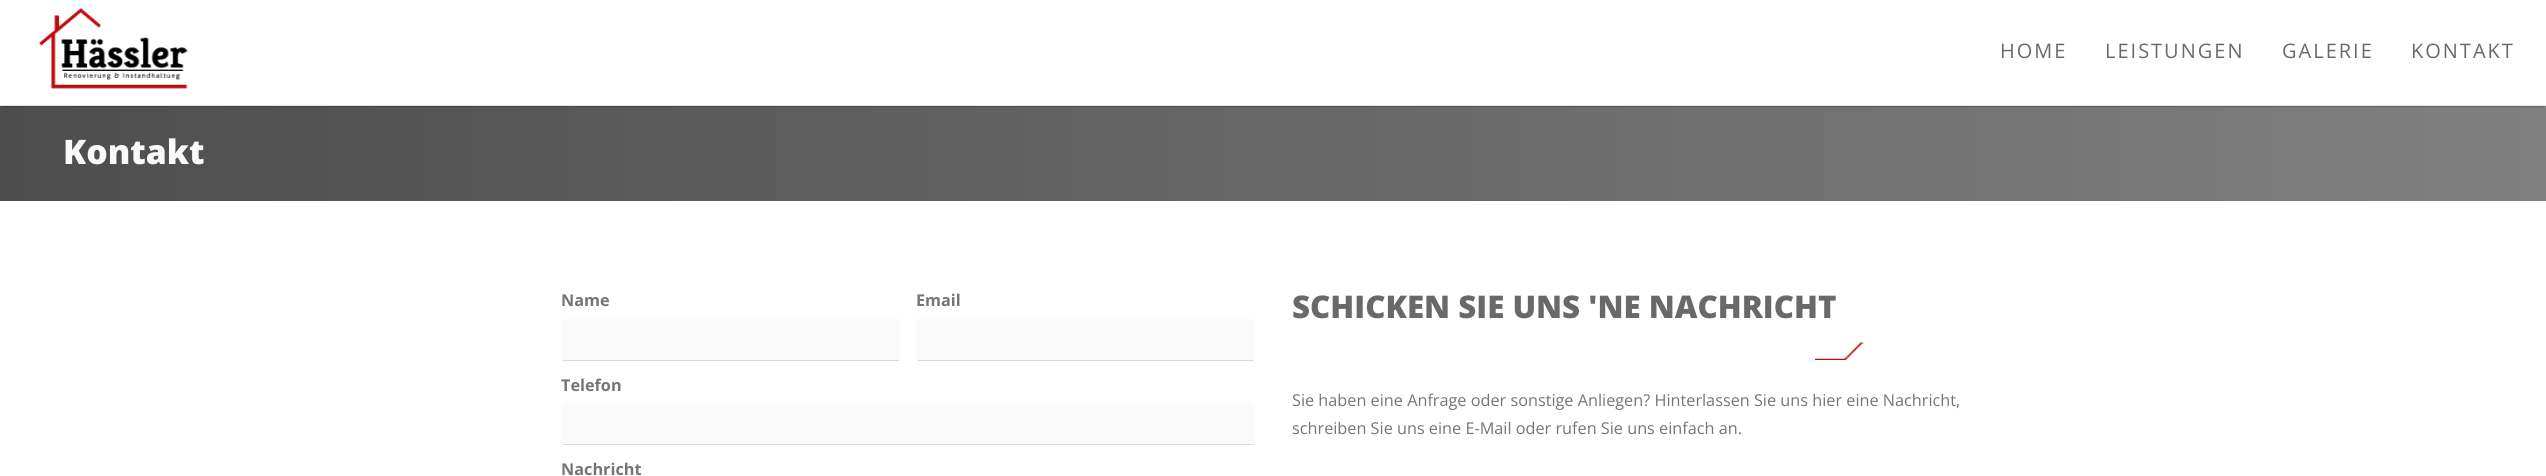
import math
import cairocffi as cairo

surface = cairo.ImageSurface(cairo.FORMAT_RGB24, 2546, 476)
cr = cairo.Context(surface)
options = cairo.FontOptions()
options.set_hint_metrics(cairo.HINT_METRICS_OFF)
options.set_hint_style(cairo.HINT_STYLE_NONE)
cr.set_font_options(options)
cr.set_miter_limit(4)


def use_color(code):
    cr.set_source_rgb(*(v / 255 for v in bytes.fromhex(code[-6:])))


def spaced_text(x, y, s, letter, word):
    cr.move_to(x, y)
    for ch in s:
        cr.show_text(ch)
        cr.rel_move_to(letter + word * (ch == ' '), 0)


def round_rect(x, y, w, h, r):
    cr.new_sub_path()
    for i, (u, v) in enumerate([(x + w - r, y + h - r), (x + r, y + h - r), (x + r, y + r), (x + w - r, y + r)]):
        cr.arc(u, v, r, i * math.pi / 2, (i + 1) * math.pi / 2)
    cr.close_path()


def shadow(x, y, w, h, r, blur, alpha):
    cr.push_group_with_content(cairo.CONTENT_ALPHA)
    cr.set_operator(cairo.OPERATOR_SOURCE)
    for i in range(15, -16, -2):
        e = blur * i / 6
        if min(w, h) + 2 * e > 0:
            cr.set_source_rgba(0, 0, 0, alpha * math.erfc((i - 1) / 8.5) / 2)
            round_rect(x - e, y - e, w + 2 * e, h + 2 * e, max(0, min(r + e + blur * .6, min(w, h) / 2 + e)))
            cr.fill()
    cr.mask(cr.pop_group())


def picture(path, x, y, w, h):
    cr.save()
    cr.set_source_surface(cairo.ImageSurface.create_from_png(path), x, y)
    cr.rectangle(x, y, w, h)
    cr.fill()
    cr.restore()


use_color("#ffffff")
cr.paint()
gradient = cairo.LinearGradient(0, 154, 2546, 154)
gradient.add_color_stop_rgba(0, 0.302, 0.302, 0.302, 1)
gradient.add_color_stop_rgba(1, 0.502, 0.502, 0.502, 1)
cr.set_source(gradient)
cr.rectangle(0, 106, 2546, 95)
cr.fill()
cr.save()
cr.rectangle(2, 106, 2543, 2)
cr.clip()
use_color("#000000")
shadow(3, 5, 2541, 101, 0, 1, 0.5)
cr.restore()
use_color("#e4e4e4")
cr.rectangle(0, 105, 2546, 1)
cr.fill()
picture("img1.png", 38, 8, 150, 81)
cr.select_font_face("Open Sans")
cr.set_font_size(20)
use_color("#696969")
spaced_text(2000, 58, "HOME", 2, 0)
spaced_text(2105, 58, "LEISTUNGEN", 2, 0)
spaced_text(2282, 58, "GALERIE", 2, 0)
spaced_text(2411, 58, "KONTAKT", 2, 0)
cr.select_font_face("Open Sans ExtraBold")
cr.set_font_size(33.75)
use_color("#fafafa")
cr.move_to(63, 164)
cr.show_text("Kontakt")
cr.select_font_face("Open Sans", cairo.FONT_SLANT_NORMAL, cairo.FONT_WEIGHT_BOLD)
cr.set_font_size(16.25)
use_color("#757575")
cr.move_to(561, 306)
cr.show_text("Name")
use_color("#fbfbfb")
round_rect(561, 319, 339, 42, 2.5)
cr.fill()
use_color("#dadada")
cr.rectangle(563, 360, 336, 1)
cr.fill()
use_color("#757575")
cr.move_to(916, 306)
cr.show_text("Email")
use_color("#fbfbfb")
round_rect(916, 319, 339, 42, 2.5)
cr.fill()
use_color("#dadada")
cr.rectangle(918, 360, 336, 1)
cr.fill()
use_color("#757575")
cr.move_to(561, 391)
cr.show_text("Telefon")
use_color("#fbfbfb")
round_rect(561, 403, 694, 42, 2.5)
cr.fill()
use_color("#dadada")
cr.rectangle(563, 444, 691, 1)
cr.fill()
use_color("#757575")
cr.move_to(561, 475)
cr.show_text("Nachricht")
cr.select_font_face("Open Sans ExtraBold")
cr.set_font_size(31.25)
use_color("#696969")
cr.move_to(1292, 318)
cr.show_text("SCHICKEN SIE UNS 'NE NACHRICHT")
picture("img2.png", 1815, 342, 49, 18)
cr.select_font_face("Open Sans")
cr.set_font_size(16.25)
use_color("#757575")
cr.move_to(1292, 406)
cr.show_text("Sie haben eine Anfrage oder sonstige Anliegen? Hinterlassen Sie uns hier eine Nachricht,")
cr.move_to(1292, 434)
cr.show_text("schreiben Sie uns eine E-Mail oder rufen Sie uns einfach an.")
surface.write_to_png("result.png")
